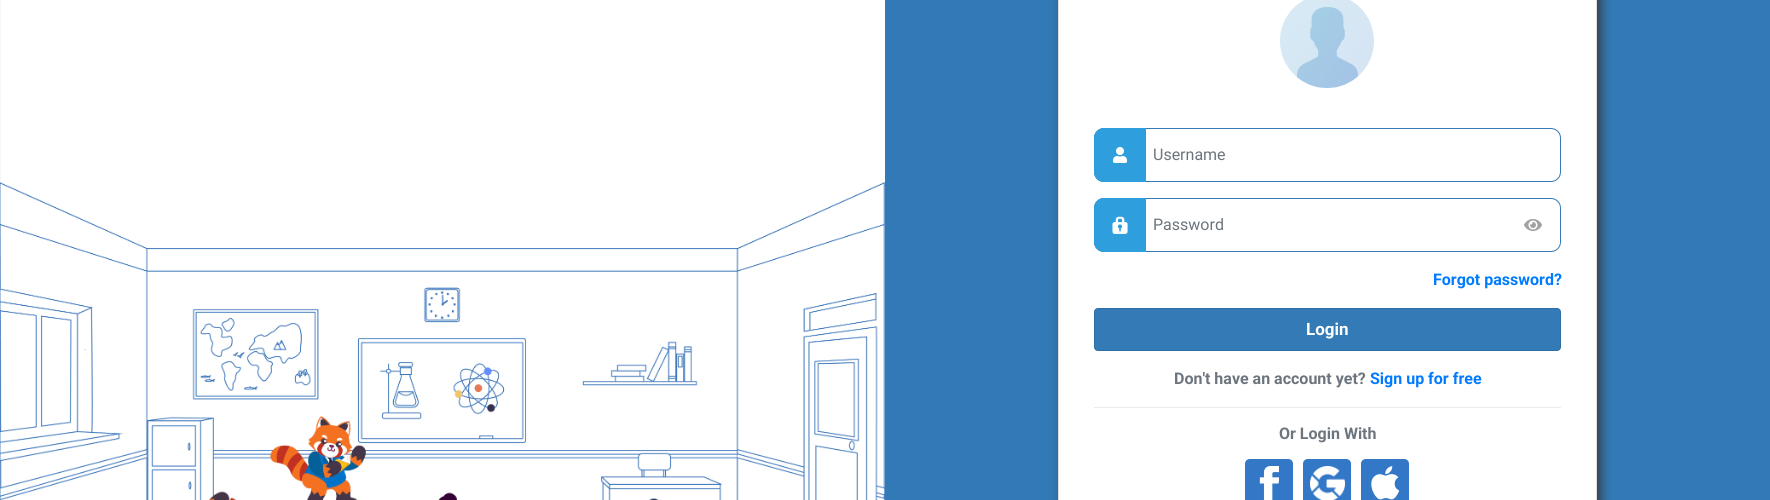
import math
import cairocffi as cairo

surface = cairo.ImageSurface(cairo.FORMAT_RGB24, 1770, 500)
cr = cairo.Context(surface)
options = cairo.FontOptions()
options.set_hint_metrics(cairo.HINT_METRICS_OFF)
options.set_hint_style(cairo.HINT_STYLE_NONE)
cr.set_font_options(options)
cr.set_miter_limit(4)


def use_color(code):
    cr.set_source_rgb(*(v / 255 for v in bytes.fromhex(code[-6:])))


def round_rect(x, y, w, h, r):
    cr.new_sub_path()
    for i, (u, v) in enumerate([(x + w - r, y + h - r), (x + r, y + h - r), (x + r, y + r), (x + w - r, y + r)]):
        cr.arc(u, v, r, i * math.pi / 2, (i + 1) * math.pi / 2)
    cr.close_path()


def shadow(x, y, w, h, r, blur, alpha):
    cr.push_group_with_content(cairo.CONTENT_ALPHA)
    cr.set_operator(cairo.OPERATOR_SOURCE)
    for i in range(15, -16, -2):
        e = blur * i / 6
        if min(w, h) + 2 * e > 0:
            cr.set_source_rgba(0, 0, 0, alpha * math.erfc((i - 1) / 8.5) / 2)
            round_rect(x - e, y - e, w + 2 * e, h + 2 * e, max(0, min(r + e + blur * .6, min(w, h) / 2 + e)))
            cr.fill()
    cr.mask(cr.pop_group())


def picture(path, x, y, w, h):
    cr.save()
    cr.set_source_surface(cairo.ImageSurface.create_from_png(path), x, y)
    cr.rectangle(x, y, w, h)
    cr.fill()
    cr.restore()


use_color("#327ab7")
cr.paint()
picture("img1.png", 0, 0, 885, 500)
use_color("#3a3737")
shadow(1062, -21, 539, 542, 4, 5.5, 1)
use_color("#ffffff")
cr.rectangle(1058.5, -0.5, 538, 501)
cr.fill_preserve()
use_color("#dfdfdf")
cr.set_line_width(1)
cr.stroke()
picture("img2.png", 1280, 0, 94, 88)
round_rect(1094.5, 128.5, 466, 53, 9.5)
use_color("#337ab7")
cr.stroke()
use_color("#2e9fdc")
cr.new_path()
cr.move_to(1104, 128)
cr.line_to(1146, 128)
cr.line_to(1146, 182)
cr.line_to(1104, 182)
cr.curve_to(1098.5, 182, 1094, 177.5, 1094, 172)
cr.line_to(1094, 138)
cr.curve_to(1094, 132.5, 1098.5, 128, 1104, 128)
cr.close_path()
cr.fill()
picture("img3.png", 1113, 147, 14, 16)
cr.select_font_face("Roboto")
cr.set_font_size(16)
use_color("#6c757d")
cr.move_to(1153, 160)
cr.show_text("Username")
round_rect(1094.5, 198.5, 466, 53, 9.5)
use_color("#337ab7")
cr.stroke()
use_color("#2e9fdc")
cr.new_path()
cr.move_to(1104, 198)
cr.line_to(1146, 198)
cr.line_to(1146, 252)
cr.line_to(1104, 252)
cr.curve_to(1098.5, 252, 1094, 247.5, 1094, 242)
cr.line_to(1094, 208)
cr.curve_to(1094, 202.5, 1098.5, 198, 1104, 198)
cr.close_path()
cr.fill()
picture("img4.png", 1112, 216, 16, 18)
use_color("#6c757d")
cr.move_to(1153, 230)
cr.show_text("Password")
picture("img5.png", 1524, 219, 18, 12)
cr.select_font_face("Roboto", cairo.FONT_SLANT_NORMAL, cairo.FONT_WEIGHT_BOLD)
use_color("#007bff")
cr.move_to(1433, 285)
cr.show_text("Forgot password?")
use_color("#337ab7")
round_rect(1094.5, 308.5, 466, 42, 3.5)
cr.fill_preserve()
use_color("#2e6da4")
cr.stroke()
cr.set_font_size(17)
use_color("#ffffff")
cr.move_to(1306, 335)
cr.show_text("Login")
cr.set_font_size(16)
use_color("#6c757d")
cr.move_to(1174, 384)
cr.show_text("Don't have an account yet?")
use_color("#007bff")
cr.move_to(1370, 384)
cr.show_text("Sign up for free")
use_color("#ebebeb")
cr.rectangle(1094, 407, 467, 1)
cr.fill()
use_color("#6c757d")
cr.move_to(1279, 439)
cr.show_text("Or Login With")
use_color("#3377c7")
cr.new_path()
cr.move_to(1250, 459)
cr.line_to(1288, 459)
cr.curve_to(1291, 459, 1293, 461, 1293, 464)
cr.line_to(1293, 500)
cr.line_to(1245, 500)
cr.line_to(1245, 464)
cr.curve_to(1245, 461, 1247, 459, 1250, 459)
cr.close_path()
cr.fill()
picture("img6.png", 1259, 466, 20, 34)
cr.new_path()
cr.move_to(1308, 459)
cr.line_to(1346, 459)
cr.curve_to(1349, 459, 1351, 461, 1351, 464)
cr.line_to(1351, 500)
cr.line_to(1303, 500)
cr.line_to(1303, 464)
cr.curve_to(1303, 461, 1305, 459, 1308, 459)
cr.close_path()
cr.fill()
picture("img7.png", 1310, 466, 35, 34)
cr.new_path()
cr.move_to(1366, 459)
cr.line_to(1404, 459)
cr.curve_to(1407, 459, 1409, 461, 1409, 464)
cr.line_to(1409, 500)
cr.line_to(1361, 500)
cr.line_to(1361, 464)
cr.curve_to(1361, 461, 1363, 459, 1366, 459)
cr.close_path()
cr.fill()
picture("img8.png", 1371, 466, 29, 34)
surface.write_to_png("result.png")
